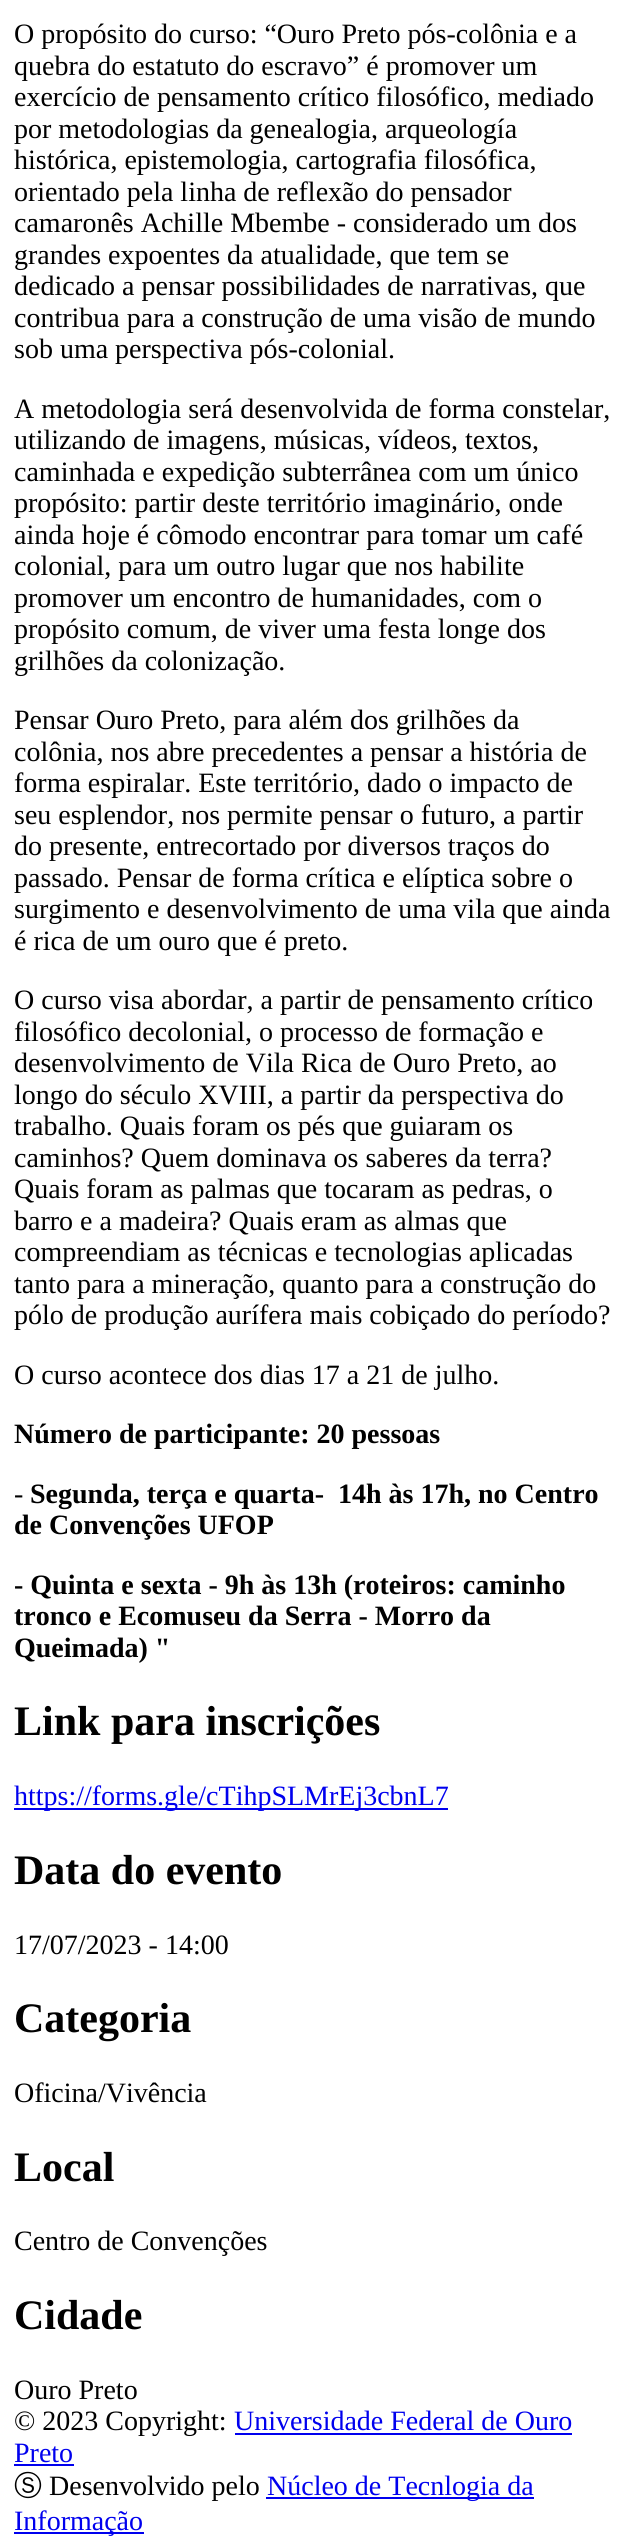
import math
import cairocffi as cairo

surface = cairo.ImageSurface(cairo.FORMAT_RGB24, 624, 2540)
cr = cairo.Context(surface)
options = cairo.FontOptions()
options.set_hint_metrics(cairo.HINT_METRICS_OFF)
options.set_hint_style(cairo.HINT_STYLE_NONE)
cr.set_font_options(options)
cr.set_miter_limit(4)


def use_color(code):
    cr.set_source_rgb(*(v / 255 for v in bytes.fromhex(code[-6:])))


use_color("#ffffff")
cr.paint()
cr.select_font_face("Liberation Serif")
cr.set_font_size(28)
use_color("#000000")
cr.move_to(14, 43)
cr.show_text("O propósito do curso: “Ouro Preto pós-colônia e a")
cr.move_to(14, 75)
cr.show_text("quebra do estatuto do escravo” é promover um")
cr.move_to(14, 106)
cr.show_text("exercício de pensamento crítico filosófico, mediado")
cr.move_to(14, 138)
cr.show_text("por metodologias da genealogia, arqueología")
cr.move_to(14, 169)
cr.show_text("histórica, epistemologia, cartografia filosófica,")
cr.move_to(14, 201)
cr.show_text("orientado pela linha de reflexão do pensador")
cr.move_to(14, 232)
cr.show_text("camaronês Achille Mbembe - considerado um dos")
cr.move_to(14, 264)
cr.show_text("grandes expoentes da atualidade, que tem se")
cr.move_to(14, 295)
cr.show_text("dedicado a pensar possibilidades de narrativas, que")
cr.move_to(14, 327)
cr.show_text("contribua para a construção de uma visão de mundo")
cr.move_to(14, 358)
cr.show_text("sob uma perspectiva pós-colonial.")
cr.move_to(14, 418)
cr.show_text("A metodologia será desenvolvida de forma constelar,")
cr.move_to(14, 449)
cr.show_text("utilizando de imagens, músicas, vídeos, textos,")
cr.move_to(14, 481)
cr.show_text("caminhada e expedição subterrânea com um único")
cr.move_to(14, 512)
cr.show_text("propósito: partir deste território imaginário, onde")
cr.move_to(14, 544)
cr.show_text("ainda hoje é cômodo encontrar para tomar um café")
cr.move_to(14, 575)
cr.show_text("colonial, para um outro lugar que nos habilite")
cr.move_to(14, 607)
cr.show_text("promover um encontro de humanidades, com o")
cr.move_to(14, 638)
cr.show_text("propósito comum, de viver uma festa longe dos")
cr.move_to(14, 670)
cr.show_text("grilhões da colonização.")
cr.move_to(14, 729)
cr.show_text("Pensar Ouro Preto, para além dos grilhões da")
cr.move_to(14, 761)
cr.show_text("colônia, nos abre precedentes a pensar a história de")
cr.move_to(14, 792)
cr.show_text("forma espiralar. Este território, dado o impacto de")
cr.move_to(14, 824)
cr.show_text("seu esplendor, nos permite pensar o futuro, a partir")
cr.move_to(14, 855)
cr.show_text("do presente, entrecortado por diversos traços do")
cr.move_to(14, 887)
cr.show_text("passado. Pensar de forma crítica e elíptica sobre o")
cr.move_to(14, 918)
cr.show_text("surgimento e desenvolvimento de uma vila que ainda")
cr.move_to(14, 950)
cr.show_text("é rica de um ouro que é preto.")
cr.move_to(14, 1009)
cr.show_text("O curso visa abordar, a partir de pensamento crítico")
cr.move_to(14, 1041)
cr.show_text("filosófico decolonial, o processo de formação e")
cr.move_to(14, 1072)
cr.show_text("desenvolvimento de Vila Rica de Ouro Preto, ao")
cr.move_to(14, 1104)
cr.show_text("longo do século XVIII, a partir da perspectiva do")
cr.move_to(14, 1135)
cr.show_text("trabalho. Quais foram os pés que guiaram os")
cr.move_to(14, 1167)
cr.show_text("caminhos? Quem dominava os saberes da terra?")
cr.move_to(14, 1198)
cr.show_text("Quais foram as palmas que tocaram as pedras, o")
cr.move_to(14, 1230)
cr.show_text("barro e a madeira? Quais eram as almas que")
cr.move_to(14, 1261)
cr.show_text("compreendiam as técnicas e tecnologias aplicadas")
cr.move_to(14, 1293)
cr.show_text("tanto para a mineração, quanto para a construção do")
cr.move_to(14, 1324)
cr.show_text("pólo de produção aurífera mais cobiçado do período?")
cr.move_to(14, 1384)
cr.show_text("O curso acontece dos dias 17 a 21 de julho.")
cr.select_font_face("Liberation Serif", cairo.FONT_SLANT_NORMAL, cairo.FONT_WEIGHT_BOLD)
cr.move_to(14, 1443)
cr.show_text("Número de participante: 20 pessoas")
cr.select_font_face("Liberation Serif")
cr.move_to(14, 1503)
cr.show_text("-")
cr.select_font_face("Liberation Serif", cairo.FONT_SLANT_NORMAL, cairo.FONT_WEIGHT_BOLD)
cr.move_to(30, 1503)
cr.show_text("Segunda, terça e quarta-  14h às 17h, no Centro")
cr.move_to(14, 1534)
cr.show_text("de Convenções UFOP")
cr.move_to(14, 1594)
cr.show_text("- Quinta e sexta - 9h às 13h (roteiros: caminho")
cr.move_to(14, 1625)
cr.show_text("tronco e Ecomuseu da Serra - Morro da")
cr.move_to(14, 1657)
cr.show_text("Queimada) \"")
cr.set_font_size(42)
cr.move_to(14, 1735)
cr.show_text("Link para inscrições")
use_color("#0000ee")
cr.rectangle(14, 1808, 434, 2)
cr.fill()
cr.select_font_face("Liberation Serif")
cr.set_font_size(28)
cr.move_to(14, 1805)
cr.show_text("https://forms.gle/cTihpSLMrEj3cbnL7")
cr.select_font_face("Liberation Serif", cairo.FONT_SLANT_NORMAL, cairo.FONT_WEIGHT_BOLD)
cr.set_font_size(42)
use_color("#000000")
cr.move_to(14, 1884)
cr.show_text("Data do evento")
cr.select_font_face("Liberation Serif")
cr.set_font_size(28)
cr.move_to(14, 1954)
cr.show_text("17/07/2023 - 14:00")
cr.select_font_face("Liberation Serif", cairo.FONT_SLANT_NORMAL, cairo.FONT_WEIGHT_BOLD)
cr.set_font_size(42)
cr.move_to(14, 2032)
cr.show_text("Categoria")
cr.select_font_face("Liberation Serif")
cr.set_font_size(28)
cr.move_to(14, 2102)
cr.show_text("Oficina/Vivência")
cr.select_font_face("Liberation Serif", cairo.FONT_SLANT_NORMAL, cairo.FONT_WEIGHT_BOLD)
cr.set_font_size(42)
cr.move_to(14, 2181)
cr.show_text("Local")
cr.select_font_face("Liberation Serif")
cr.set_font_size(28)
cr.move_to(14, 2250)
cr.show_text("Centro de Convenções")
cr.select_font_face("Liberation Serif", cairo.FONT_SLANT_NORMAL, cairo.FONT_WEIGHT_BOLD)
cr.set_font_size(42)
cr.move_to(14, 2329)
cr.show_text("Cidade")
cr.select_font_face("Liberation Serif")
cr.set_font_size(28)
cr.move_to(14, 2399)
cr.show_text("Ouro Preto")
cr.move_to(14, 2430)
cr.show_text("© 2023 Copyright:")
use_color("#0000ee")
cr.move_to(234, 2430)
cr.show_text("Universidade Federal de Ouro")
cr.rectangle(235, 2433, 337, 2)
cr.fill()
cr.move_to(14, 2462)
cr.show_text("Preto")
cr.rectangle(14, 2464, 60, 2)
cr.fill()
cr.select_font_face("WenQuanYi Zen Hei Medium")
use_color("#000000")
cr.move_to(14, 2495)
cr.show_text("Ⓢ")
cr.select_font_face("Liberation Serif")
cr.move_to(49, 2495)
cr.show_text("Desenvolvido pelo")
use_color("#0000ee")
cr.rectangle(266, 2497, 268, 2)
cr.fill()
cr.move_to(267, 2495)
cr.show_text("Núcleo de Tecnlogia da")
cr.rectangle(14, 2532, 130, 2)
cr.fill()
cr.move_to(14, 2530)
cr.show_text("Informação")
surface.write_to_png("result.png")
